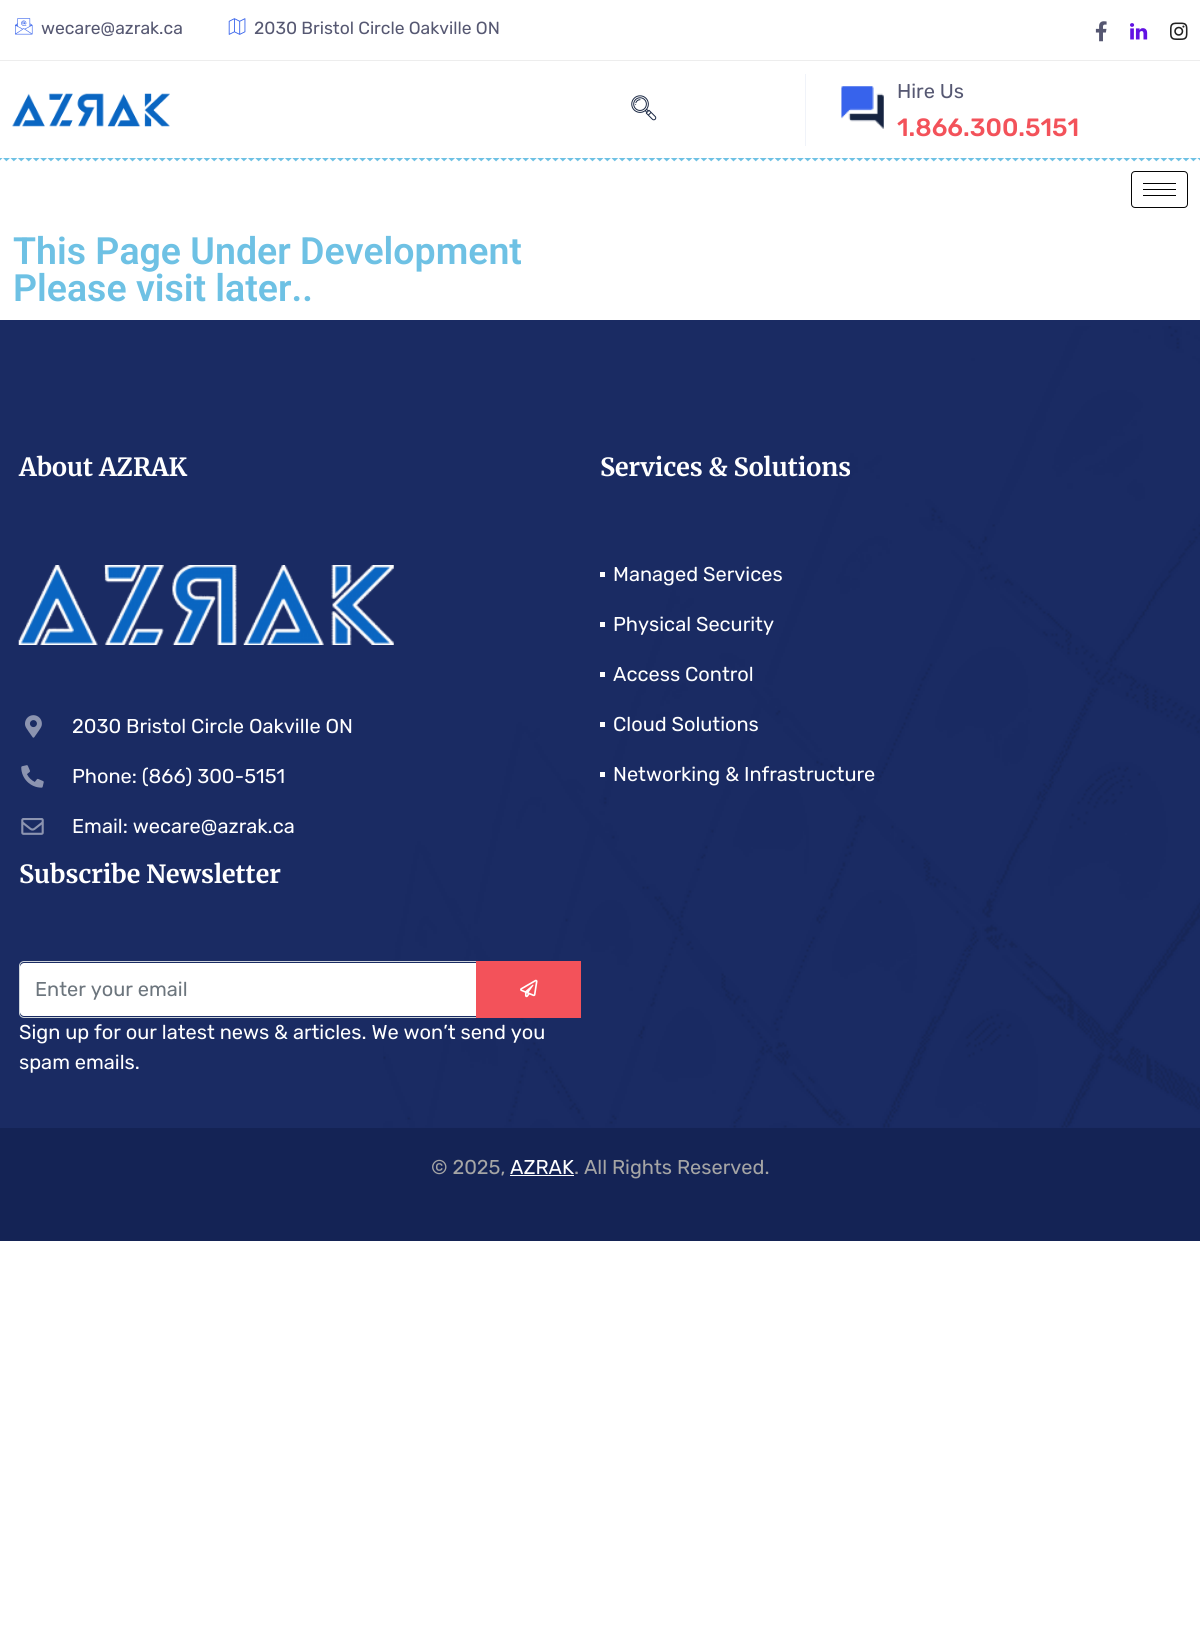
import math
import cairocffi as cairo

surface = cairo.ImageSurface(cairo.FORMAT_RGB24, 1200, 1644)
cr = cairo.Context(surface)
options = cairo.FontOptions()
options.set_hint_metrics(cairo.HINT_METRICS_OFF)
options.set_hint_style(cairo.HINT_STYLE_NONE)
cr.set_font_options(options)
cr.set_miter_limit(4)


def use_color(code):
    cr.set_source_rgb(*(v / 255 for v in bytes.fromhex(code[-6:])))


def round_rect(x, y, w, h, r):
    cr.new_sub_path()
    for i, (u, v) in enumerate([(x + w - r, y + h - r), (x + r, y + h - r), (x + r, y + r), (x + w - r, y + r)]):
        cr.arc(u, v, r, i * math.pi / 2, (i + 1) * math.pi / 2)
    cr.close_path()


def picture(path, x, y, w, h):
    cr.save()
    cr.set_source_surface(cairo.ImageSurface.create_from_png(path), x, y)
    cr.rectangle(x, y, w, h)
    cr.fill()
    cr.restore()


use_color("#ffffff")
cr.paint()
use_color("#ededed")
cr.rectangle(0, 60, 1200, 1)
cr.fill()
picture("img1.png", 15, 18, 18, 17)
cr.select_font_face("Rubik")
cr.set_font_size(17.5)
use_color("#565872")
cr.move_to(41, 34)
cr.show_text("wecare@azrak.ca")
picture("img2.png", 228, 18, 18, 17)
cr.move_to(254, 34)
cr.show_text("2030 Bristol Circle Oakville ON")
picture("img3.png", 1095, 21, 12, 21)
picture("img4.png", 1130, 23, 18, 17)
picture("img5.png", 1170, 22, 18, 18)
picture("img6.png", 12, 93, 158, 34)
picture("img7.png", 631, 95, 26, 26)
use_color("#f0f3f9")
cr.rectangle(805, 74, 1, 72)
cr.fill()
picture("img8.png", 841, 86, 43, 43)
cr.set_font_size(20)
use_color("#565872")
cr.move_to(897, 98)
cr.show_text("Hire Us")
cr.select_font_face("Rubik Medium")
cr.set_font_size(25)
use_color("#f3525a")
cr.move_to(897, 136)
cr.show_text("1.866.300.5151")
picture("img9.png", 0, 158, 1200, 4)
round_rect(1131.5, 171.5, 56, 36, 3.5)
use_color("#050505")
cr.set_line_width(1)
cr.stroke()
use_color("#000000")
cr.rectangle(1143, 183, 33, 1)
cr.fill()
cr.rectangle(1143, 189, 33, 1)
cr.fill()
cr.rectangle(1143, 195, 33, 1)
cr.fill()
cr.select_font_face("Roboto SemiBold")
cr.set_font_size(37.5)
use_color("#6ec1e4")
cr.move_to(13, 264)
cr.show_text("This Page Under Development")
cr.move_to(13, 301)
cr.show_text("Please visit later..")
use_color("#1a2b63")
cr.rectangle(0, 320, 1200, 808)
cr.fill()
picture("img10.png", 383, 326, 817, 802)
cr.select_font_face("Merriweather", cairo.FONT_SLANT_NORMAL, cairo.FONT_WEIGHT_BOLD)
cr.set_font_size(25)
use_color("#ffffff")
cr.move_to(19, 476)
cr.show_text("About AZRAK")
picture("img11.png", 18, 565, 376, 80)
picture("img12.png", 25, 715, 17, 23)
cr.select_font_face("Rubik")
cr.set_font_size(20)
cr.move_to(72, 733)
cr.show_text("2030 Bristol Circle Oakville ON")
picture("img13.png", 21, 765, 23, 23)
cr.move_to(72, 783)
cr.show_text("Phone: (866) 300-5151")
picture("img14.png", 21, 818, 23, 17)
cr.move_to(72, 833)
cr.show_text("Email: wecare@azrak.ca")
cr.select_font_face("Merriweather", cairo.FONT_SLANT_NORMAL, cairo.FONT_WEIGHT_BOLD)
cr.set_font_size(25)
cr.move_to(600, 476)
cr.show_text("Services & Solutions")
cr.rectangle(600, 572, 5, 5)
cr.fill()
cr.select_font_face("Rubik")
cr.set_font_size(20)
cr.move_to(613, 581)
cr.show_text("Managed Services")
cr.rectangle(600, 622, 5, 5)
cr.fill()
cr.move_to(613, 631)
cr.show_text("Physical Security")
cr.rectangle(600, 672, 5, 5)
cr.fill()
cr.move_to(613, 681)
cr.show_text("Access Control")
cr.rectangle(600, 722, 5, 5)
cr.fill()
cr.move_to(613, 731)
cr.show_text("Cloud Solutions")
cr.rectangle(600, 772, 5, 5)
cr.fill()
cr.move_to(613, 781)
cr.show_text("Networking & Infrastructure")
cr.select_font_face("Merriweather", cairo.FONT_SLANT_NORMAL, cairo.FONT_WEIGHT_BOLD)
cr.set_font_size(25)
cr.move_to(19, 883)
cr.show_text("Subscribe Newsletter")
cr.new_path()
cr.move_to(24, 963)
cr.line_to(476, 963)
cr.line_to(476, 1016)
cr.line_to(24, 1016)
cr.curve_to(22, 1016, 20, 1014, 20, 1012)
cr.line_to(20, 967)
cr.curve_to(20, 965, 22, 963, 24, 963)
cr.close_path()
cr.fill()
cr.new_path()
cr.move_to(24, 961.5)
cr.line_to(477.5, 961.5)
cr.line_to(477.5, 1017.5)
cr.line_to(24, 1017.5)
cr.curve_to(21.5, 1017.5, 19.5, 1015.5, 19.5, 1013)
cr.line_to(19.5, 966)
cr.curve_to(19.5, 963.5, 21.5, 961.5, 24, 961.5)
cr.close_path()
use_color("#ced4da")
cr.stroke()
cr.select_font_face("Rubik")
cr.set_font_size(20)
use_color("#6c757d")
cr.move_to(35, 996)
cr.show_text("Enter your email")
use_color("#f3525a")
cr.rectangle(476, 961, 105, 57)
cr.fill()
picture("img15.png", 520, 979, 18, 19)
use_color("#ffffff")
cr.move_to(19, 1039)
cr.show_text("Sign up for our latest news & articles. We won’t send you")
cr.move_to(19, 1069)
cr.show_text("spam emails.")
use_color("#142355")
cr.rectangle(0, 1128, 1200, 113)
cr.fill()
use_color("#a5a5a5")
cr.move_to(431, 1174)
cr.show_text("© 2025,")
use_color("#ffffff")
cr.move_to(510, 1174)
cr.show_text("AZRAK")
cr.rectangle(510, 1175, 64, 1)
cr.fill()
use_color("#a5a5a5")
cr.move_to(574, 1174)
cr.show_text(". All Rights Reserved.")
surface.write_to_png("result.png")
